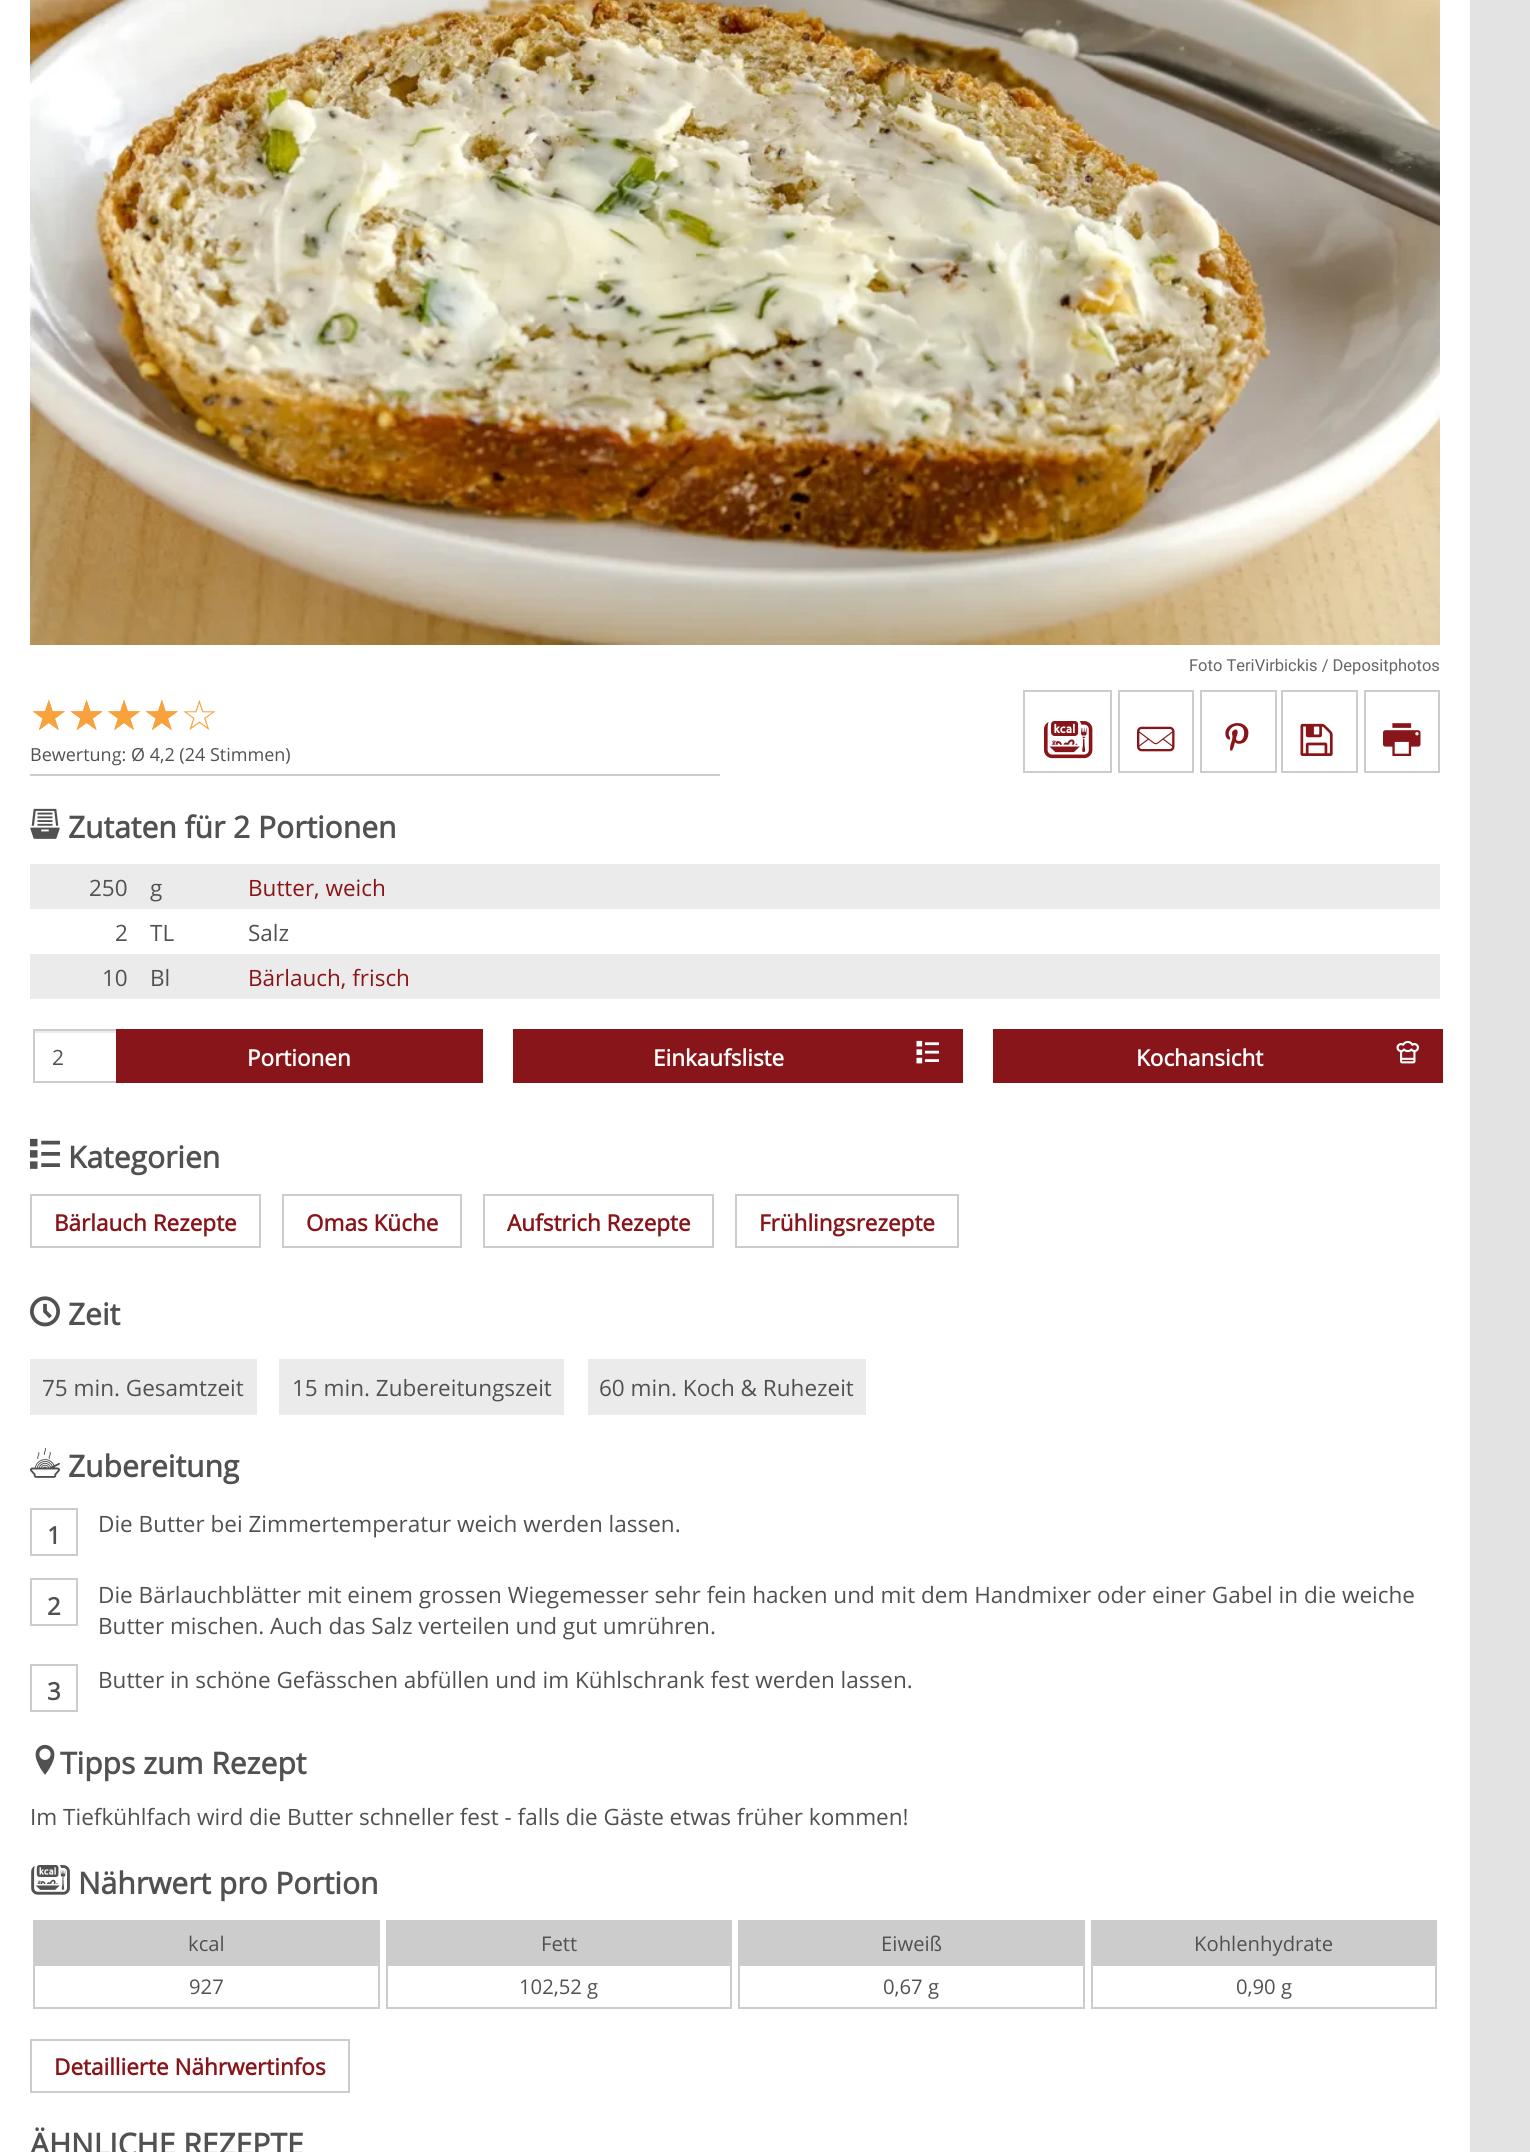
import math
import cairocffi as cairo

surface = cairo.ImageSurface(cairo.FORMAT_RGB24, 1530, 2152)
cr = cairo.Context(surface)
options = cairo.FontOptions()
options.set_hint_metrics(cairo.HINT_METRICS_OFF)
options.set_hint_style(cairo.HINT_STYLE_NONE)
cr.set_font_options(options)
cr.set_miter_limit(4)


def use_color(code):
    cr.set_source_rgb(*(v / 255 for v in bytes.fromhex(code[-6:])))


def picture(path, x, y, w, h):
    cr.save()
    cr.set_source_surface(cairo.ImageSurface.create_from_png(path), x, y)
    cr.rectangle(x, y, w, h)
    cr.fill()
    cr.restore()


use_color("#e3e3e3")
cr.paint()
use_color("#ffffff")
cr.rectangle(0, 0, 1470, 2152)
cr.fill()
picture("img1.png", 30, 0, 1410, 645)
cr.select_font_face("Roboto")
cr.set_font_size(16.5)
use_color("#666666")
cr.move_to(1189, 671)
cr.show_text("Foto TeriVirbickis / Depositphotos")
use_color("#cccccc")
cr.rectangle(30, 774, 690, 2)
cr.fill()
cr.select_font_face("DejaVu Sans")
cr.set_font_size(42)
use_color("#f8a23d")
cr.move_to(30, 730)
cr.show_text("☆☆☆☆☆")
cr.move_to(30, 730)
cr.show_text("★★★★")
cr.select_font_face("Open Sans")
cr.set_font_size(18)
use_color("#515151")
cr.move_to(30, 761)
cr.show_text("Bewertung: Ø 4,2 (24 Stimmen)")
cr.rectangle(1024, 691, 87, 81)
use_color("#cccccc")
cr.stroke()
picture("img2.png", 1043, 721, 50, 38)
cr.rectangle(1119, 691, 74, 81)
cr.stroke()
picture("img3.png", 1137, 726, 38, 26)
cr.rectangle(1201, 691, 75, 81)
cr.stroke()
picture("img4.png", 1225, 723, 24, 28)
cr.rectangle(1282, 691, 75, 81)
cr.stroke()
picture("img5.png", 1300, 723, 33, 33)
cr.rectangle(1365, 691, 74, 81)
cr.stroke()
picture("img6.png", 1383, 723, 38, 33)
picture("img7.png", 30, 808, 30, 31)
cr.select_font_face("Open Sans", cairo.FONT_SLANT_NORMAL, cairo.FONT_WEIGHT_BOLD)
cr.set_font_size(30)
use_color("#515151")
cr.move_to(68, 838)
cr.show_text("Zutaten für 2 Portionen")
use_color("#ecebeb")
cr.rectangle(30, 864, 1410, 45)
cr.fill()
cr.select_font_face("Open Sans")
cr.set_font_size(22.5)
use_color("#515151")
cr.move_to(89, 896)
cr.show_text("250")
cr.move_to(150, 896)
cr.show_text("g")
use_color("#88151a")
cr.move_to(248, 896)
cr.show_text("Butter, weich")
use_color("#515151")
cr.move_to(115, 941)
cr.show_text("2")
cr.move_to(150, 941)
cr.show_text("TL")
cr.move_to(248, 941)
cr.show_text("Salz")
use_color("#ecebeb")
cr.rectangle(30, 954, 1410, 45)
cr.fill()
use_color("#515151")
cr.move_to(102, 986)
cr.show_text("10")
cr.move_to(150, 986)
cr.show_text("Bl")
use_color("#88151a")
cr.move_to(248, 986)
cr.show_text("Bärlauch, frisch")
use_color("#ececec")
cr.rectangle(35, 1031, 87, 2)
cr.fill()
cr.rectangle(34, 1030, 88, 52)
use_color("#cccccc")
cr.stroke()
cr.set_font_size(21)
use_color("#515151")
cr.move_to(52, 1065)
cr.show_text("2")
use_color("#88151a")
cr.rectangle(116, 1029, 367, 54)
cr.fill()
cr.select_font_face("Open Sans", cairo.FONT_SLANT_NORMAL, cairo.FONT_WEIGHT_BOLD)
cr.set_font_size(22.5)
use_color("#ffffff")
cr.move_to(247, 1066)
cr.show_text("Portionen")
use_color("#88151a")
cr.rectangle(513, 1029, 450, 54)
cr.fill()
use_color("#ffffff")
cr.move_to(653, 1066)
cr.show_text("Einkaufsliste")
picture("img8.png", 916, 1040, 23, 24)
use_color("#88151a")
cr.rectangle(993, 1029, 450, 54)
cr.fill()
use_color("#ffffff")
cr.move_to(1136, 1066)
cr.show_text("Kochansicht")
picture("img9.png", 1396, 1040, 23, 24)
picture("img10.png", 30, 1138, 30, 31)
cr.set_font_size(30)
use_color("#515151")
cr.move_to(68, 1168)
cr.show_text("Kategorien")
cr.rectangle(31, 1195, 229, 52)
use_color("#cccccc")
cr.stroke()
cr.set_font_size(22.5)
use_color("#88151a")
cr.move_to(54, 1231)
cr.show_text("Bärlauch Rezepte")
cr.rectangle(283, 1195, 178, 52)
use_color("#cccccc")
cr.stroke()
use_color("#88151a")
cr.move_to(306, 1231)
cr.show_text("Omas Küche")
cr.rectangle(484, 1195, 229, 52)
use_color("#cccccc")
cr.stroke()
use_color("#88151a")
cr.move_to(507, 1231)
cr.show_text("Aufstrich Rezepte")
cr.rectangle(736, 1195, 222, 52)
use_color("#cccccc")
cr.stroke()
use_color("#88151a")
cr.move_to(759, 1231)
cr.show_text("Frühlingsrezepte")
picture("img11.png", 30, 1296, 30, 31)
cr.set_font_size(30)
use_color("#515151")
cr.move_to(68, 1325)
cr.show_text("Zeit")
use_color("#ecebeb")
cr.rectangle(30, 1359, 227, 56)
cr.fill()
cr.select_font_face("Open Sans")
cr.set_font_size(22.5)
use_color("#515151")
cr.move_to(42, 1396)
cr.show_text("75 min. Gesamtzeit")
use_color("#ecebeb")
cr.rectangle(279, 1359, 285, 56)
cr.fill()
use_color("#515151")
cr.move_to(292, 1396)
cr.show_text("15 min. Zubereitungszeit")
use_color("#ecebeb")
cr.rectangle(588, 1359, 278, 56)
cr.fill()
use_color("#515151")
cr.move_to(599, 1396)
cr.show_text("60 min. Koch & Ruhezeit")
picture("img12.png", 30, 1447, 30, 31)
cr.select_font_face("Open Sans", cairo.FONT_SLANT_NORMAL, cairo.FONT_WEIGHT_BOLD)
cr.set_font_size(30)
cr.move_to(68, 1477)
cr.show_text("Zubereitung")
cr.rectangle(31, 1509, 46, 46)
use_color("#cccccc")
cr.stroke()
cr.set_font_size(24)
use_color("#515151")
cr.move_to(47, 1544)
cr.show_text("1")
cr.select_font_face("Open Sans")
cr.set_font_size(22.5)
cr.move_to(98, 1532)
cr.show_text("Die Butter bei Zimmertemperatur weich werden lassen.")
cr.rectangle(31, 1579, 46, 46)
use_color("#cccccc")
cr.stroke()
cr.select_font_face("Open Sans", cairo.FONT_SLANT_NORMAL, cairo.FONT_WEIGHT_BOLD)
cr.set_font_size(24)
use_color("#515151")
cr.move_to(47, 1615)
cr.show_text("2")
cr.select_font_face("Open Sans")
cr.set_font_size(22.5)
cr.move_to(98, 1603)
cr.show_text("Die Bärlauchblätter mit einem grossen Wiegemesser sehr fein hacken und mit dem Handmixer oder einer Gabel in die weiche")
cr.move_to(98, 1634)
cr.show_text("Butter mischen. Auch das Salz verteilen und gut umrühren.")
cr.move_to(98, 1688)
cr.show_text("Butter in schöne Gefässchen abfüllen und im Kühlschrank fest werden lassen.")
cr.rectangle(31, 1665, 46, 46)
use_color("#cccccc")
cr.stroke()
cr.select_font_face("Open Sans", cairo.FONT_SLANT_NORMAL, cairo.FONT_WEIGHT_BOLD)
cr.set_font_size(24)
use_color("#515151")
cr.move_to(47, 1700)
cr.show_text("3")
picture("img13.png", 35, 1744, 20, 31)
cr.set_font_size(30)
cr.move_to(60, 1774)
cr.show_text("Tipps zum Rezept")
cr.select_font_face("Open Sans")
cr.set_font_size(22.5)
cr.move_to(30, 1825)
cr.show_text("Im Tiefkühlfach wird die Butter schneller fest - falls die Gäste etwas früher kommen!")
picture("img14.png", 31, 1865, 39, 30)
cr.select_font_face("Open Sans", cairo.FONT_SLANT_NORMAL, cairo.FONT_WEIGHT_BOLD)
cr.set_font_size(30)
cr.move_to(78, 1894)
cr.show_text("Nährwert pro Portion")
cr.rectangle(34, 1921, 345, 87)
use_color("#cccccc")
cr.stroke()
cr.rectangle(35, 1922, 343, 44)
cr.fill()
cr.select_font_face("Open Sans")
cr.set_font_size(20.25)
use_color("#515151")
cr.move_to(188, 1951)
cr.show_text("kcal")
cr.move_to(189, 1994)
cr.show_text("927")
cr.rectangle(387, 1921, 344, 87)
use_color("#cccccc")
cr.stroke()
cr.rectangle(388, 1922, 342, 42)
cr.fill()
cr.rectangle(387, 1964, 344, 2)
cr.fill()
use_color("#515151")
cr.move_to(541, 1951)
cr.show_text("Fett")
cr.move_to(519, 1994)
cr.show_text("102,52 g")
cr.rectangle(739, 1921, 345, 87)
use_color("#cccccc")
cr.stroke()
cr.rectangle(740, 1922, 343, 44)
cr.fill()
use_color("#515151")
cr.move_to(881, 1951)
cr.show_text("Eiweiß")
cr.move_to(883, 1994)
cr.show_text("0,67 g")
cr.rectangle(1092, 1921, 344, 87)
use_color("#cccccc")
cr.stroke()
cr.rectangle(1093, 1922, 342, 42)
cr.fill()
cr.rectangle(1092, 1964, 344, 2)
cr.fill()
use_color("#515151")
cr.move_to(1194, 1951)
cr.show_text("Kohlenhydrate")
cr.move_to(1236, 1994)
cr.show_text("0,90 g")
cr.rectangle(31, 2040, 318, 52)
use_color("#cccccc")
cr.stroke()
cr.select_font_face("Open Sans", cairo.FONT_SLANT_NORMAL, cairo.FONT_WEIGHT_BOLD)
cr.set_font_size(22.5)
use_color("#88151a")
cr.move_to(54, 2075)
cr.show_text("Detaillierte Nährwertinfos")
cr.set_font_size(30)
use_color("#515151")
cr.move_to(30, 2155)
cr.show_text("ÄHNLICHE REZEPTE")
surface.write_to_png("result.png")
